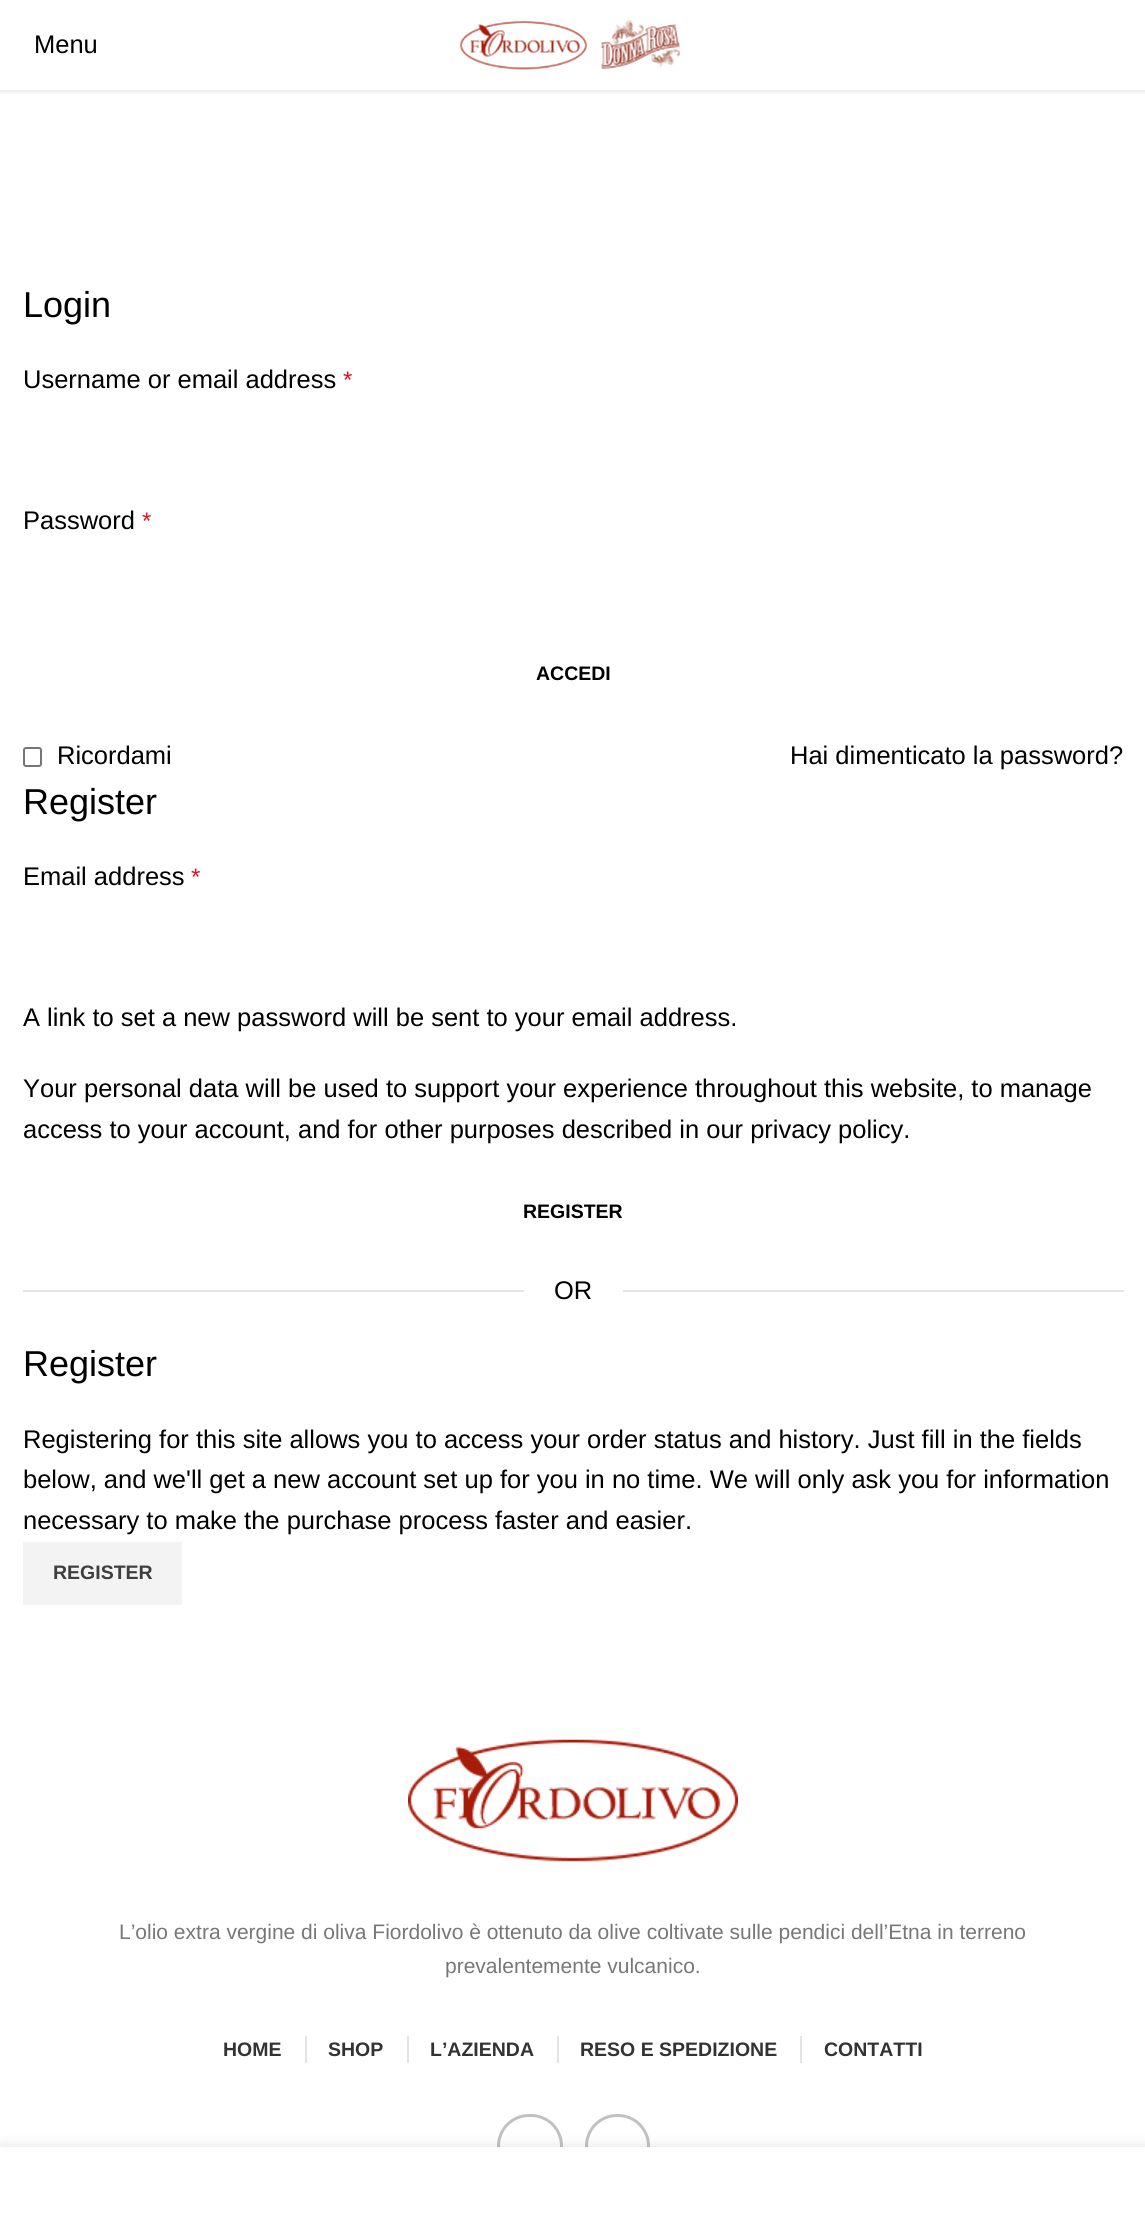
import math
import cairocffi as cairo

surface = cairo.ImageSurface(cairo.FORMAT_RGB24, 1145, 2229)
cr = cairo.Context(surface)
options = cairo.FontOptions()
options.set_hint_metrics(cairo.HINT_METRICS_OFF)
options.set_hint_style(cairo.HINT_STYLE_NONE)
cr.set_font_options(options)
cr.set_miter_limit(4)


def use_color(code):
    cr.set_source_rgb(*(v / 255 for v in bytes.fromhex(code[-6:])))


def round_rect(x, y, w, h, r):
    cr.new_sub_path()
    for i, (u, v) in enumerate([(x + w - r, y + h - r), (x + r, y + h - r), (x + r, y + r), (x + w - r, y + r)]):
        cr.arc(u, v, r, i * math.pi / 2, (i + 1) * math.pi / 2)
    cr.close_path()


def shadow(x, y, w, h, r, blur, alpha):
    cr.push_group_with_content(cairo.CONTENT_ALPHA)
    cr.set_operator(cairo.OPERATOR_SOURCE)
    for i in range(15, -16, -2):
        e = blur * i / 6
        if min(w, h) + 2 * e > 0:
            cr.set_source_rgba(0, 0, 0, alpha * math.erfc((i - 1) / 8.5) / 2)
            round_rect(x - e, y - e, w + 2 * e, h + 2 * e, max(0, min(r + e + blur * .6, min(w, h) / 2 + e)))
            cr.fill()
    cr.mask(cr.pop_group())


def picture(path, x, y, w, h):
    cr.save()
    cr.set_source_surface(cairo.ImageSurface.create_from_png(path), x, y)
    cr.rectangle(x, y, w, h)
    cr.fill()
    cr.restore()


use_color("#ffffff")
cr.paint()
cr.save()
cr.rectangle(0, 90, 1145, 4)
cr.clip()
use_color("#000000")
shadow(0, 2, 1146, 90, 0, 2, 0.1)
cr.restore()
cr.select_font_face("Liberation Sans")
cr.set_font_size(25.5)
use_color("#000000")
cr.move_to(34, 53)
cr.show_text("Menu")
picture("img1.png", 460, 20, 221, 50)
cr.set_font_size(36)
cr.move_to(23, 317)
cr.show_text("Login")
cr.set_font_size(25.5)
cr.move_to(23, 388)
cr.show_text("Username or email address")
cr.set_font_size(24)
use_color("#e01020")
cr.move_to(343, 388)
cr.show_text("*")
cr.set_font_size(25.5)
use_color("#000000")
cr.move_to(23, 529)
cr.show_text("Password")
cr.set_font_size(24)
use_color("#e01020")
cr.move_to(142, 529)
cr.show_text("*")
cr.select_font_face("Liberation Sans", cairo.FONT_SLANT_NORMAL, cairo.FONT_WEIGHT_BOLD)
cr.set_font_size(19.5)
use_color("#000000")
cr.move_to(536, 680)
cr.show_text("ACCEDI")
round_rect(24, 748, 17, 18, 2)
use_color("#767676")
cr.stroke()
cr.select_font_face("Liberation Sans")
cr.set_font_size(25.5)
use_color("#000000")
cr.move_to(57, 764)
cr.show_text("Ricordami")
cr.move_to(790, 764)
cr.show_text("Hai dimenticato la password?")
cr.set_font_size(36)
cr.move_to(23, 814)
cr.show_text("Register")
cr.set_font_size(25.5)
cr.move_to(23, 885)
cr.show_text("Email address")
cr.set_font_size(24)
use_color("#e01020")
cr.move_to(191, 885)
cr.show_text("*")
cr.set_font_size(25.5)
use_color("#000000")
cr.move_to(23, 1026)
cr.show_text("A link to set a new password will be sent to your email address.")
cr.move_to(23, 1097)
cr.show_text("Your personal data will be used to support your experience throughout this website, to manage")
cr.move_to(23, 1138)
cr.show_text("access to your account, and for other purposes described in our privacy policy.")
cr.select_font_face("Liberation Sans", cairo.FONT_SLANT_NORMAL, cairo.FONT_WEIGHT_BOLD)
cr.set_font_size(19.5)
cr.move_to(523, 1218)
cr.show_text("REGISTER")
use_color("#e4e4e4")
cr.rectangle(23, 1290, 501, 2)
cr.fill()
cr.select_font_face("Liberation Sans")
cr.set_font_size(25.5)
use_color("#000000")
cr.move_to(554, 1299)
cr.show_text("OR")
use_color("#e4e4e4")
cr.rectangle(623, 1290, 501, 2)
cr.fill()
cr.set_font_size(36)
use_color("#000000")
cr.move_to(23, 1376)
cr.show_text("Register")
cr.set_font_size(25.5)
cr.move_to(23, 1448)
cr.show_text("Registering for this site allows you to access your order status and history. Just fill in the fields")
cr.move_to(23, 1488)
cr.show_text("below, and we'll get a new account set up for you in no time. We will only ask you for information")
cr.move_to(23, 1529)
cr.show_text("necessary to make the purchase process faster and easier.")
use_color("#f3f3f3")
cr.rectangle(23, 1542, 159, 63)
cr.fill()
cr.select_font_face("Liberation Sans", cairo.FONT_SLANT_NORMAL, cairo.FONT_WEIGHT_BOLD)
cr.set_font_size(19.5)
use_color("#3e3e3e")
cr.move_to(53, 1579)
cr.show_text("REGISTER")
picture("img2.png", 408, 1739, 330, 123)
cr.select_font_face("Liberation Sans")
cr.set_font_size(21)
use_color("#777777")
cr.move_to(119, 1939)
cr.show_text("L’olio extra vergine di oliva Fiordolivo è ottenuto da olive coltivate sulle pendici dell’Etna in terreno")
cr.move_to(445, 1973)
cr.show_text("prevalentemente vulcanico.")
cr.select_font_face("Liberation Sans", cairo.FONT_SLANT_NORMAL, cairo.FONT_WEIGHT_BOLD)
cr.set_font_size(19.5)
use_color("#333333")
cr.move_to(223, 2056)
cr.show_text("HOME")
use_color("#e4e4e4")
cr.rectangle(305, 2036, 2, 27)
cr.fill()
use_color("#333333")
cr.move_to(328, 2056)
cr.show_text("SHOP")
use_color("#e4e4e4")
cr.rectangle(407, 2036, 2, 27)
cr.fill()
use_color("#333333")
cr.move_to(430, 2056)
cr.show_text("L’AZIENDA")
use_color("#e4e4e4")
cr.rectangle(557, 2036, 2, 27)
cr.fill()
use_color("#333333")
cr.move_to(580, 2056)
cr.show_text("RESO E SPEDIZIONE")
use_color("#e4e4e4")
cr.rectangle(800, 2036, 2, 27)
cr.fill()
use_color("#333333")
cr.move_to(824, 2056)
cr.show_text("CONTATTI")
round_rect(498.5, 2115.5, 63, 61, 30.5)
use_color("#c1c2bf")
cr.set_line_width(3)
cr.stroke()
round_rect(586.5, 2115.5, 62, 61, 30.5)
cr.stroke()
use_color("#000000")
shadow(0, 2147, 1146, 82, 0, 7, 0.12)
use_color("#ffffff")
cr.rectangle(0, 2147, 1145, 82)
cr.fill()
surface.write_to_png("result.png")
